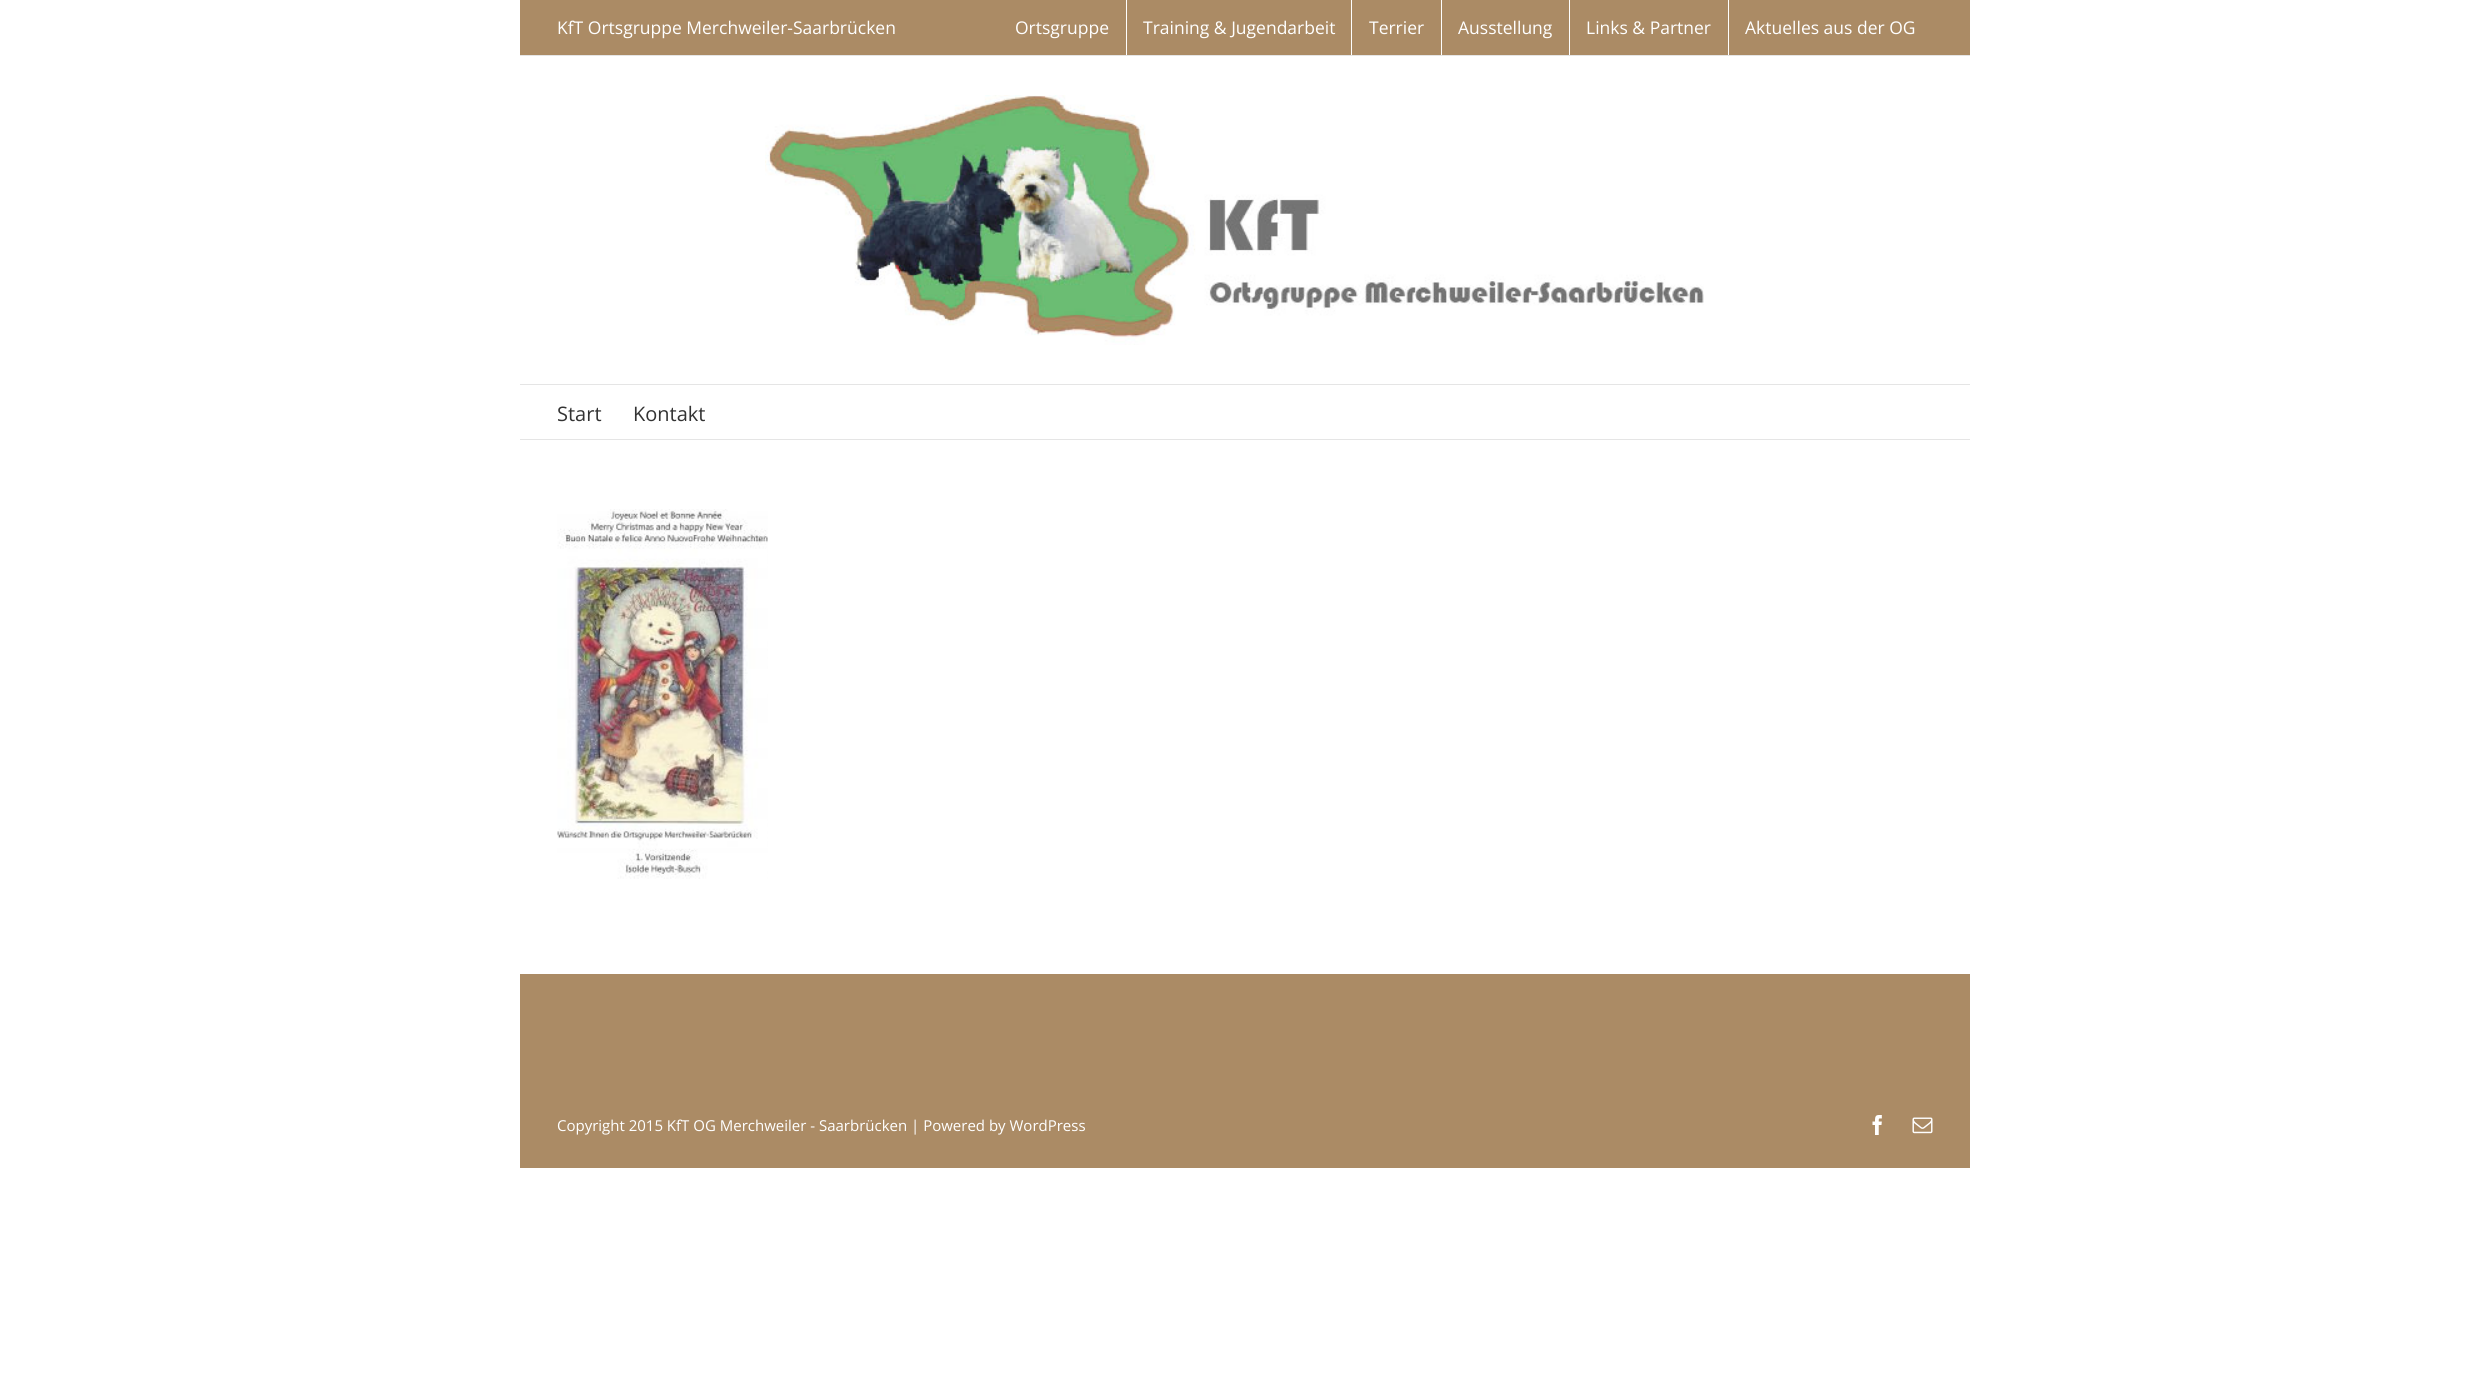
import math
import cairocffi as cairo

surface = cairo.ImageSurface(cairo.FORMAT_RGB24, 2488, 1388)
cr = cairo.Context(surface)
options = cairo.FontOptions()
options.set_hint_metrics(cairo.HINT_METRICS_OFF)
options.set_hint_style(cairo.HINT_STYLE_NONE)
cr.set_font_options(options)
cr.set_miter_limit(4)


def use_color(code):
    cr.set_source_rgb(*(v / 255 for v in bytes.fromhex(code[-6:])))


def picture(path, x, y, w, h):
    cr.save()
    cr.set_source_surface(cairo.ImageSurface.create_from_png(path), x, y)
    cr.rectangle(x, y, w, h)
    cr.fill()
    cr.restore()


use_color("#ffffff")
cr.paint()
use_color("#ab8b65")
cr.rectangle(520, 0, 1450, 55)
cr.fill()
use_color("#e5e5e5")
cr.rectangle(520, 55, 1450, 1)
cr.fill()
cr.select_font_face("Open Sans")
cr.set_font_size(17.5)
use_color("#ffffff")
cr.move_to(557, 34)
cr.show_text("KfT Ortsgruppe Merchweiler-Saarbrücken")
cr.move_to(1015, 34)
cr.show_text("Ortsgruppe")
cr.rectangle(1126, 0, 1, 55)
cr.fill()
cr.move_to(1143, 34)
cr.show_text("Training & Jugendarbeit")
cr.rectangle(1351, 0, 1, 55)
cr.fill()
cr.move_to(1369, 34)
cr.show_text("Terrier")
cr.rectangle(1441, 0, 1, 55)
cr.fill()
cr.move_to(1458, 34)
cr.show_text("Ausstellung")
cr.rectangle(1569, 0, 1, 55)
cr.fill()
cr.move_to(1586, 34)
cr.show_text("Links & Partner")
cr.rectangle(1728, 0, 1, 55)
cr.fill()
cr.move_to(1745, 34)
cr.show_text("Aktuelles aus der OG")
use_color("#e5e5e5")
cr.rectangle(520, 384, 1450, 1)
cr.fill()
picture("img1.png", 765, 95, 939, 250)
cr.rectangle(520, 439, 1450, 1)
cr.fill()
cr.set_font_size(20)
use_color("#333333")
cr.move_to(557, 421)
cr.show_text("Start")
cr.move_to(633, 421)
cr.show_text("Kontakt")
picture("img2.png", 557, 509, 211, 370)
use_color("#ab8b65")
cr.rectangle(520, 974, 1450, 194)
cr.fill()
cr.set_font_size(15)
use_color("#ffffff")
cr.move_to(557, 1131)
cr.show_text("Copyright 2015 KfT OG Merchweiler - Saarbrücken | Powered by WordPress")
picture("img3.png", 1872, 1115, 10, 20)
picture("img4.png", 1912, 1117, 21, 17)
surface.write_to_png("result.png")
